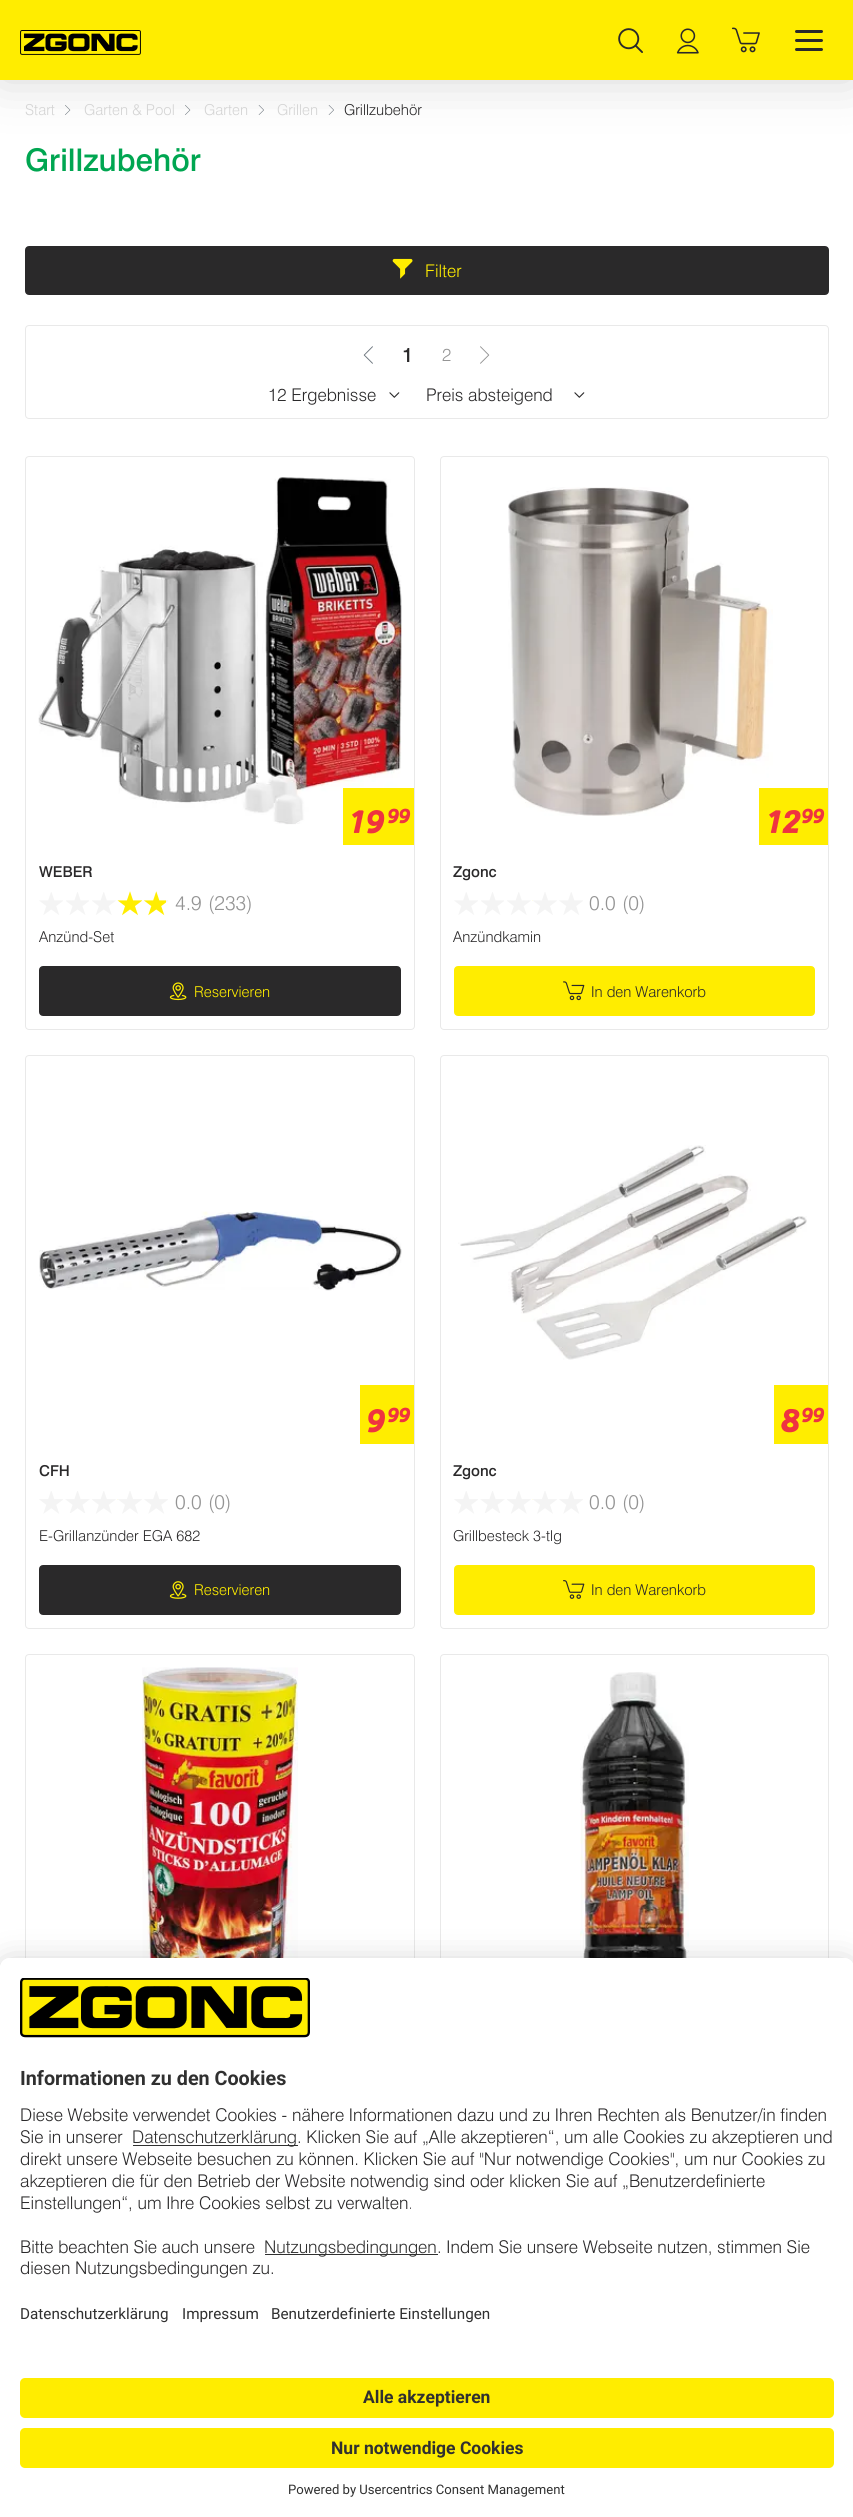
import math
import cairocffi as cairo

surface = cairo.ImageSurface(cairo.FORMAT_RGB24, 853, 2517)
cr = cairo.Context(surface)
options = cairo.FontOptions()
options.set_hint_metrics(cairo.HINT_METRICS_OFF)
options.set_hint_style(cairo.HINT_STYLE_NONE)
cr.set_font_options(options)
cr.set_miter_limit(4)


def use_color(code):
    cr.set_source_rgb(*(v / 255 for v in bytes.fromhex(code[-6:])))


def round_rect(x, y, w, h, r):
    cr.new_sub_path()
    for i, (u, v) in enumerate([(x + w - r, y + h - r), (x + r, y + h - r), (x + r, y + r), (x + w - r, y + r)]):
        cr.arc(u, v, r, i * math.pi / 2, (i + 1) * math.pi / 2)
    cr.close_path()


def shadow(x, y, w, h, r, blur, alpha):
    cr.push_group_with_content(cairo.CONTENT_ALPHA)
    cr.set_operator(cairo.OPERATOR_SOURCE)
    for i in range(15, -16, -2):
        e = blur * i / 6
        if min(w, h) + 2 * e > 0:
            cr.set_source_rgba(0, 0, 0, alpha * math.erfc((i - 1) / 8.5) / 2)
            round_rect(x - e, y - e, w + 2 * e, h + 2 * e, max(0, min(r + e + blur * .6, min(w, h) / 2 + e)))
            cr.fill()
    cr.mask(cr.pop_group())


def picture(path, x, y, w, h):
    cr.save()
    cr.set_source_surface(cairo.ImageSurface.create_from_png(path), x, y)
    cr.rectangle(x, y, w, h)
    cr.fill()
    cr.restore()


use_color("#ffffff")
cr.paint()
picture("img5.png", 65, 105, 6, 10)
picture("img5.png", 185, 105, 6, 10)
picture("img6.png", 258, 105, 6, 10)
picture("img6.png", 328, 105, 6, 10)
use_color("#2a292a")
shadow(0, 0, 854, 80, 0, 25, 0.2)
use_color("#ffed00")
cr.rectangle(0, 0, 853, 80)
cr.fill()
picture("img1.png", 20, 30, 121, 25)
picture("img2.png", 618, 28, 25, 25)
picture("img3.png", 676, 28, 23, 26)
picture("img4.png", 731, 27, 29, 26)
use_color("#2a292a")
round_rect(795, 30, 28, 3, 1.5)
cr.fill()
round_rect(795, 39, 28, 3, 1.5)
cr.fill()
round_rect(795, 48, 28, 3, 1.5)
cr.fill()
cr.select_font_face("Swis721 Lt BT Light")
cr.set_font_size(15)
use_color("#d4d4d4")
cr.move_to(25, 115)
cr.show_text("Start")
cr.move_to(84, 115)
cr.show_text("Garten & Pool")
cr.move_to(204, 115)
cr.show_text("Garten")
cr.move_to(277, 115)
cr.show_text("Grillen")
use_color("#2a292a")
cr.move_to(344, 115)
cr.show_text("Grillzubehör")
cr.select_font_face("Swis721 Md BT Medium")
cr.set_font_size(31.25)
use_color("#00a651")
cr.move_to(25, 171)
cr.show_text("Grillzubehör")
use_color("#2a292a")
round_rect(26.5, 247.5, 801, 46, 2.5)
cr.fill_preserve()
cr.set_line_width(3)
cr.stroke()
picture("img7.png", 392, 258, 21, 21)
cr.select_font_face("Swis721 Lt BT Light")
cr.set_font_size(17.5)
use_color("#ffed00")
cr.move_to(425, 277)
cr.show_text("Filter")
round_rect(25.5, 325.5, 803, 93, 3.5)
use_color("#e9e9e9")
cr.set_line_width(1)
cr.stroke()
picture("img8.png", 363, 346, 10, 18)
cr.select_font_face("Swis721 Md BT Medium")
cr.set_font_size(20)
use_color("#2a292a")
cr.move_to(402, 362)
cr.show_text("1")
cr.select_font_face("Swis721 Lt BT Light")
cr.set_font_size(17.5)
use_color("#949494")
cr.move_to(442, 361)
cr.show_text("2")
picture("img9.png", 480, 346, 10, 18)
use_color("#2a292a")
cr.move_to(268, 401)
cr.show_text("12 Ergebnisse")
picture("img10.png", 389, 392, 11, 6)
cr.move_to(426, 401)
cr.show_text("Preis absteigend")
picture("img10.png", 574, 392, 11, 6)
round_rect(25.5, 456.5, 389, 573, 3.5)
use_color("#e9e9e9")
cr.stroke()
picture("img11.png", 38, 477, 364, 348)
use_color("#ffed00")
cr.rectangle(343, 788, 71, 57)
cr.fill()
cr.select_font_face("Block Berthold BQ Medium", cairo.FONT_SLANT_ITALIC)
cr.set_font_size(32)
use_color("#ef3340")
cr.move_to(348, 833)
cr.show_text("19")
cr.set_font_size(20)
cr.move_to(387, 823)
cr.show_text("99")
cr.select_font_face("Swis721 Md BT Medium")
cr.set_font_size(15)
use_color("#2a292a")
cr.move_to(39, 877)
cr.show_text("WEBER")
picture("img12.png", 39, 892, 24, 23)
picture("img13.png", 66, 892, 23, 23)
picture("img14.png", 92, 892, 24, 23)
picture("img15.png", 117, 891, 25, 25)
picture("img16.png", 144, 891, 24, 25)
cr.select_font_face("Swis721 Lt BT Light")
cr.set_font_size(20)
use_color("#949494")
cr.move_to(175, 910)
cr.show_text("4.9")
cr.move_to(208, 910)
cr.show_text("(233)")
cr.set_font_size(15)
use_color("#2a292a")
cr.move_to(39, 942)
cr.show_text("Anzünd-Set")
round_rect(40.5, 967.5, 359, 47, 2.5)
cr.fill_preserve()
cr.set_line_width(3)
cr.stroke()
picture("img17.png", 169, 982, 18, 19)
use_color("#ffed00")
cr.move_to(194, 997)
cr.show_text("Reservieren")
round_rect(440.5, 456.5, 388, 573, 3.5)
use_color("#e9e9e9")
cr.set_line_width(1)
cr.stroke()
picture("img18.png", 508, 487, 265, 329)
use_color("#ffed00")
cr.rectangle(759, 788, 69, 57)
cr.fill()
cr.select_font_face("Block Berthold BQ Medium", cairo.FONT_SLANT_ITALIC)
cr.set_font_size(32)
use_color("#ef3340")
cr.move_to(765, 833)
cr.show_text("12")
cr.set_font_size(20)
cr.move_to(801, 823)
cr.show_text("99")
cr.select_font_face("Swis721 Md BT Medium")
cr.set_font_size(15)
use_color("#2a292a")
cr.move_to(453, 877)
cr.show_text("Zgonc")
picture("img12.png", 454, 892, 24, 23)
picture("img13.png", 481, 892, 23, 23)
picture("img14.png", 507, 892, 24, 23)
picture("img19.png", 532, 892, 25, 23)
picture("img12.png", 559, 892, 24, 23)
cr.select_font_face("Swis721 Lt BT Light")
cr.set_font_size(20)
use_color("#949494")
cr.move_to(589, 910)
cr.show_text("0.0")
cr.move_to(622, 910)
cr.show_text("(0)")
cr.set_font_size(15)
use_color("#2a292a")
cr.move_to(453, 942)
cr.show_text("Anzündkamin")
use_color("#ffed00")
round_rect(455.5, 967.5, 358, 47, 2.5)
cr.fill_preserve()
cr.set_line_width(3)
cr.stroke()
picture("img20.png", 563, 981, 22, 20)
use_color("#2a292a")
cr.move_to(591, 997)
cr.show_text("In den Warenkorb")
round_rect(25.5, 1055.5, 389, 573, 3.5)
use_color("#e9e9e9")
cr.set_line_width(1)
cr.stroke()
picture("img21.png", 39, 1211, 363, 80)
use_color("#ffed00")
cr.rectangle(360, 1385, 54, 59)
cr.fill()
cr.select_font_face("Block Berthold BQ Medium", cairo.FONT_SLANT_ITALIC)
cr.set_font_size(32)
use_color("#ef3340")
cr.move_to(366, 1432)
cr.show_text("9")
cr.set_font_size(20)
cr.move_to(387, 1422)
cr.show_text("99")
cr.select_font_face("Swis721 Md BT Medium")
cr.set_font_size(15)
use_color("#2a292a")
cr.move_to(39, 1476)
cr.show_text("CFH")
picture("img22.png", 39, 1491, 24, 23)
picture("img23.png", 65, 1491, 25, 22)
picture("img24.png", 92, 1491, 24, 23)
picture("img25.png", 117, 1491, 25, 23)
picture("img22.png", 144, 1491, 24, 23)
cr.select_font_face("Swis721 Lt BT Light")
cr.set_font_size(20)
use_color("#949494")
cr.move_to(175, 1509)
cr.show_text("0.0")
cr.move_to(208, 1509)
cr.show_text("(0)")
cr.set_font_size(15)
use_color("#2a292a")
cr.move_to(39, 1541)
cr.show_text("E-Grillanzünder EGA 682")
round_rect(40.5, 1566.5, 359, 47, 2.5)
cr.fill_preserve()
cr.set_line_width(3)
cr.stroke()
picture("img26.png", 169, 1581, 18, 18)
use_color("#ffed00")
cr.move_to(194, 1595)
cr.show_text("Reservieren")
round_rect(440.5, 1055.5, 388, 573, 3.5)
use_color("#e9e9e9")
cr.set_line_width(1)
cr.stroke()
picture("img27.png", 458, 1145, 349, 215)
use_color("#ffed00")
cr.rectangle(774, 1385, 54, 59)
cr.fill()
cr.select_font_face("Block Berthold BQ Medium", cairo.FONT_SLANT_ITALIC)
cr.set_font_size(32)
use_color("#ef3340")
cr.move_to(780, 1432)
cr.show_text("8")
cr.set_font_size(20)
cr.move_to(801, 1422)
cr.show_text("99")
cr.select_font_face("Swis721 Md BT Medium")
cr.set_font_size(15)
use_color("#2a292a")
cr.move_to(453, 1476)
cr.show_text("Zgonc")
picture("img22.png", 454, 1491, 24, 23)
picture("img23.png", 480, 1491, 25, 22)
picture("img24.png", 507, 1491, 24, 23)
picture("img25.png", 532, 1491, 25, 23)
picture("img22.png", 559, 1491, 24, 23)
cr.select_font_face("Swis721 Lt BT Light")
cr.set_font_size(20)
use_color("#949494")
cr.move_to(589, 1509)
cr.show_text("0.0")
cr.move_to(622, 1509)
cr.show_text("(0)")
cr.set_font_size(15)
use_color("#2a292a")
cr.move_to(453, 1541)
cr.show_text("Grillbesteck 3-tlg")
use_color("#ffed00")
round_rect(455.5, 1566.5, 358, 47, 2.5)
cr.fill_preserve()
cr.set_line_width(3)
cr.stroke()
picture("img28.png", 563, 1580, 22, 19)
use_color("#2a292a")
cr.move_to(591, 1595)
cr.show_text("In den Warenkorb")
round_rect(25.5, 1654.5, 389, 573, 3.5)
use_color("#e9e9e9")
cr.set_line_width(1)
cr.stroke()
picture("img29.png", 142, 1667, 156, 291)
round_rect(440.5, 1654.5, 388, 573, 3.5)
cr.stroke()
picture("img30.png", 580, 1672, 109, 286)
use_color("#000000")
shadow(0, 1964, 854, 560, 10, 16, 0.22)
use_color("#ffffff")
cr.new_path()
cr.move_to(10, 1958)
cr.line_to(844, 1958)
cr.curve_to(849.5, 1958, 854, 1962.5, 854, 1968)
cr.line_to(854, 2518)
cr.line_to(0, 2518)
cr.line_to(0, 1968)
cr.curve_to(0, 1962.5, 4.5, 1958, 10, 1958)
cr.close_path()
cr.fill()
cr.new_path()
cr.move_to(10, 1958)
cr.line_to(844, 1958)
cr.curve_to(849.5, 1958, 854, 1962.5, 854, 1968)
cr.line_to(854, 2363)
cr.line_to(0, 2363)
cr.line_to(0, 1968)
cr.curve_to(0, 1962.5, 4.5, 1958, 10, 1958)
cr.close_path()
cr.fill()
picture("img31.png", 20, 1978, 290, 60)
cr.select_font_face("Roboto", cairo.FONT_SLANT_NORMAL, cairo.FONT_WEIGHT_BOLD)
cr.set_font_size(19.75)
use_color("#303030")
cr.move_to(20, 2085)
cr.show_text("Informationen zu den Cookies")
cr.select_font_face("Swis721 Lt BT Light")
cr.set_font_size(17.5)
use_color("#2a292a")
cr.move_to(20, 2121)
cr.show_text("Diese Website verwendet Cookies - nähere Informationen dazu und zu Ihren Rechten als Benutzer/in finden")
cr.move_to(20, 2143)
cr.show_text("Sie in unserer")
use_color("#303030")
cr.rectangle(133, 2145, 165, 1)
cr.fill()
cr.move_to(132, 2143)
cr.show_text("Datenschutzerklärung")
use_color("#2a292a")
cr.move_to(297, 2143)
cr.show_text(". Klicken Sie auf „Alle akzeptieren“, um alle Cookies zu akzeptieren und")
cr.move_to(20, 2165)
cr.show_text("direkt unsere Webseite besuchen zu können. Klicken Sie auf \"Nur notwendige Cookies\", um nur Cookies zu")
cr.move_to(20, 2187)
cr.show_text("akzeptieren die für den Betrieb der Website notwendig sind oder klicken Sie auf „Benutzerdefinierte")
cr.move_to(20, 2209)
cr.show_text("Einstellungen“, um Ihre Cookies selbst zu verwalten.")
cr.move_to(20, 2253)
cr.show_text("Bitte beachten Sie auch unsere")
use_color("#303030")
cr.rectangle(265, 2254, 173, 1)
cr.fill()
cr.move_to(264, 2253)
cr.show_text("Nutzungsbedingungen")
use_color("#2a292a")
cr.move_to(437, 2253)
cr.show_text(". Indem Sie unsere Webseite nutzen, stimmen Sie")
cr.move_to(20, 2274)
cr.show_text("diesen Nutzungsbedingungen zu.")
cr.select_font_face("Roboto")
cr.set_font_size(15.25)
use_color("#303030")
cr.move_to(20, 2319)
cr.show_text("Datenschutzerklärung")
cr.move_to(182, 2319)
cr.show_text("Impressum")
cr.move_to(271, 2319)
cr.show_text("Benutzerdefinierte Einstellungen")
use_color("#ffed00")
round_rect(20, 2378, 814, 40, 5)
cr.fill()
cr.select_font_face("Roboto", cairo.FONT_SLANT_NORMAL, cairo.FONT_WEIGHT_BOLD)
cr.set_font_size(17.5)
use_color("#303030")
cr.move_to(363, 2403)
cr.show_text("Alle akzeptieren")
use_color("#ffed00")
round_rect(20, 2428, 814, 40, 5)
cr.fill()
use_color("#303030")
cr.move_to(331, 2454)
cr.show_text("Nur notwendige Cookies")
cr.select_font_face("Roboto")
cr.set_font_size(13.1)
cr.move_to(288, 2494)
cr.show_text("Powered by Usercentrics Consent Management")
surface.write_to_png("result.png")
